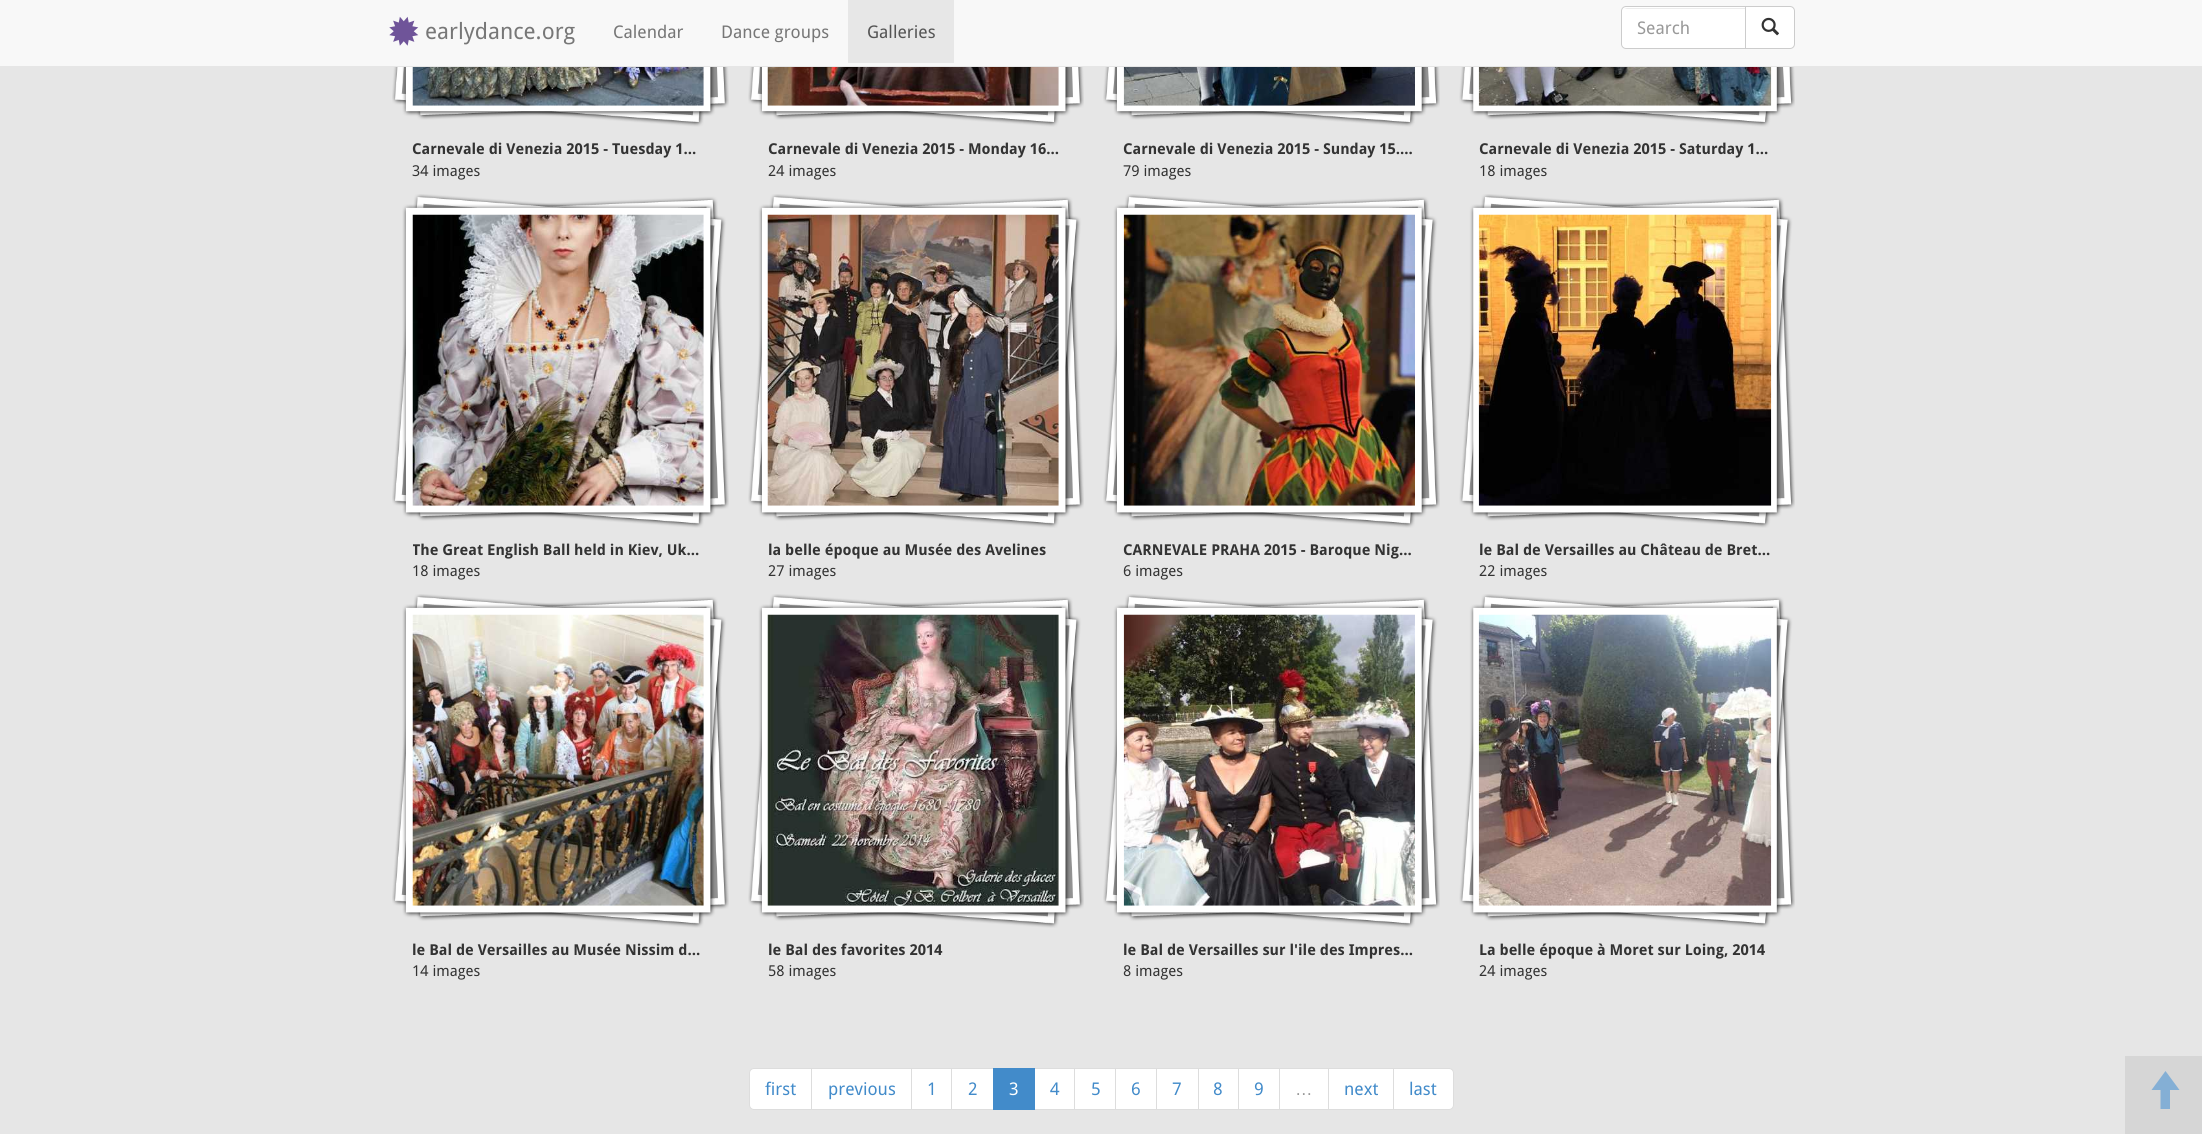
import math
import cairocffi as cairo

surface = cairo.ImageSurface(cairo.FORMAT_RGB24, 2202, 1134)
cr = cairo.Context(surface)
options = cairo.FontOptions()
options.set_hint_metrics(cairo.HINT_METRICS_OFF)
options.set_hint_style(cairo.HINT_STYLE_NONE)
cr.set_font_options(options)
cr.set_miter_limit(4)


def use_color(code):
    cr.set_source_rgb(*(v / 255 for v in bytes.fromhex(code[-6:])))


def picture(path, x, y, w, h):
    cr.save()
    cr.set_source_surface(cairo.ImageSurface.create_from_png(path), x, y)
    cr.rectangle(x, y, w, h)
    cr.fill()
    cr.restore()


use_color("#e6e6e6")
cr.paint()
use_color("#f8f8f8")
cr.rectangle(0, 0, 2202, 66)
cr.fill()
picture("img1.png", 389, 16, 30, 30)
cr.select_font_face("Droid Sans")
cr.set_font_size(22.5)
use_color("#777777")
cr.move_to(425, 39)
cr.show_text("earlydance.org")
cr.set_font_size(17.5)
cr.move_to(613, 38)
cr.show_text("Calendar")
cr.move_to(721, 38)
cr.show_text("Dance groups")
use_color("#e7e7e7")
cr.rectangle(848, 0, 106, 63)
cr.fill()
use_color("#555555")
cr.move_to(867, 38)
cr.show_text("Galleries")
use_color("#ffffff")
cr.new_path()
cr.move_to(1745.5, 6.5)
cr.line_to(1790, 6.5)
cr.curve_to(1792.5, 6.5, 1794.5, 8.5, 1794.5, 11)
cr.line_to(1794.5, 44)
cr.curve_to(1794.5, 46.5, 1792.5, 48.5, 1790, 48.5)
cr.line_to(1745.5, 48.5)
cr.close_path()
cr.fill_preserve()
use_color("#cccccc")
cr.set_line_width(1)
cr.stroke()
use_color("#ffffff")
cr.new_path()
cr.move_to(1626, 6)
cr.line_to(1746, 6)
cr.line_to(1746, 49)
cr.line_to(1626, 49)
cr.curve_to(1623, 49, 1621, 47, 1621, 44)
cr.line_to(1621, 11)
cr.curve_to(1621, 8, 1623, 6, 1626, 6)
cr.close_path()
cr.fill()
use_color("#ececec")
cr.new_path()
cr.move_to(1626, 9)
cr.line_to(1745, 9)
cr.line_to(1745, 8)
cr.line_to(1627, 8)
cr.line_to(1624, 9)
cr.close_path()
cr.fill()
cr.new_path()
cr.move_to(1626, 6.5)
cr.line_to(1745.5, 6.5)
cr.line_to(1745.5, 48.5)
cr.line_to(1626, 48.5)
cr.curve_to(1623.5, 48.5, 1621.5, 46.5, 1621.5, 44)
cr.line_to(1621.5, 11)
cr.curve_to(1621.5, 8.5, 1623.5, 6.5, 1626, 6.5)
cr.close_path()
use_color("#cccccc")
cr.stroke()
use_color("#999999")
cr.move_to(1637, 34)
cr.show_text("Search")
picture("img2.png", 1761, 17, 18, 19)
picture("img3.png", 392, 67, 337, 60)
picture("img4.png", 412, 67, 292, 39)
cr.select_font_face("Droid Sans", cairo.FONT_SLANT_NORMAL, cairo.FONT_WEIGHT_BOLD)
cr.set_font_size(15)
use_color("#333333")
cr.move_to(412, 154)
cr.show_text("Carnevale di Venezia 2015 - Tuesday 1...")
cr.select_font_face("Droid Sans")
cr.move_to(412, 176)
cr.show_text("34 images")
picture("img5.png", 748, 67, 336, 60)
picture("img6.png", 767, 67, 292, 39)
cr.select_font_face("Droid Sans", cairo.FONT_SLANT_NORMAL, cairo.FONT_WEIGHT_BOLD)
cr.move_to(768, 154)
cr.show_text("Carnevale di Venezia 2015 - Monday 16...")
cr.select_font_face("Droid Sans")
cr.move_to(768, 176)
cr.show_text("24 images")
picture("img7.png", 1103, 67, 337, 60)
picture("img8.png", 1123, 67, 292, 39)
cr.select_font_face("Droid Sans", cairo.FONT_SLANT_NORMAL, cairo.FONT_WEIGHT_BOLD)
cr.move_to(1123, 154)
cr.show_text("Carnevale di Venezia 2015 - Sunday 15....")
cr.select_font_face("Droid Sans")
cr.move_to(1123, 176)
cr.show_text("79 images")
picture("img9.png", 1459, 67, 336, 60)
picture("img10.png", 1478, 67, 294, 39)
cr.select_font_face("Droid Sans", cairo.FONT_SLANT_NORMAL, cairo.FONT_WEIGHT_BOLD)
cr.move_to(1479, 154)
cr.show_text("Carnevale di Venezia 2015 - Saturday 1...")
cr.select_font_face("Droid Sans")
cr.move_to(1479, 176)
cr.show_text("18 images")
picture("img11.png", 392, 194, 337, 334)
picture("img12.png", 412, 214, 292, 292)
cr.save()
cr.rectangle(413, 539, 291, 22)
cr.clip()
cr.select_font_face("Droid Sans", cairo.FONT_SLANT_NORMAL, cairo.FONT_WEIGHT_BOLD)
cr.move_to(412, 555)
cr.show_text("The Great English Ball held in Kiev, Uk...")
cr.restore()
cr.move_to(412, 576)
cr.show_text("18 images")
picture("img13.png", 748, 194, 336, 334)
picture("img14.png", 767, 214, 292, 292)
cr.select_font_face("Droid Sans", cairo.FONT_SLANT_NORMAL, cairo.FONT_WEIGHT_BOLD)
cr.move_to(768, 555)
cr.show_text("la belle époque au Musée des Avelines")
cr.select_font_face("Droid Sans")
cr.move_to(768, 576)
cr.show_text("27 images")
picture("img15.png", 1103, 194, 337, 334)
picture("img16.png", 1123, 214, 292, 292)
cr.select_font_face("Droid Sans", cairo.FONT_SLANT_NORMAL, cairo.FONT_WEIGHT_BOLD)
cr.move_to(1123, 555)
cr.show_text("CARNEVALE PRAHA 2015 - Baroque Nig...")
cr.select_font_face("Droid Sans")
cr.move_to(1123, 576)
cr.show_text("6 images")
picture("img17.png", 1459, 194, 336, 334)
picture("img18.png", 1478, 214, 294, 292)
cr.select_font_face("Droid Sans", cairo.FONT_SLANT_NORMAL, cairo.FONT_WEIGHT_BOLD)
cr.move_to(1479, 555)
cr.show_text("le Bal de Versailles au Château de Bret...")
cr.select_font_face("Droid Sans")
cr.move_to(1479, 576)
cr.show_text("22 images")
picture("img11.png", 392, 594, 337, 334)
picture("img19.png", 412, 614, 292, 292)
cr.select_font_face("Droid Sans", cairo.FONT_SLANT_NORMAL, cairo.FONT_WEIGHT_BOLD)
cr.move_to(412, 955)
cr.show_text("le Bal de Versailles au Musée Nissim d...")
cr.select_font_face("Droid Sans")
cr.move_to(412, 976)
cr.show_text("14 images")
picture("img13.png", 748, 594, 336, 334)
picture("img20.png", 767, 614, 292, 292)
cr.select_font_face("Droid Sans", cairo.FONT_SLANT_NORMAL, cairo.FONT_WEIGHT_BOLD)
cr.move_to(768, 955)
cr.show_text("le Bal des favorites 2014")
cr.select_font_face("Droid Sans")
cr.move_to(768, 976)
cr.show_text("58 images")
picture("img15.png", 1103, 594, 337, 334)
picture("img21.png", 1123, 614, 292, 292)
cr.select_font_face("Droid Sans", cairo.FONT_SLANT_NORMAL, cairo.FONT_WEIGHT_BOLD)
cr.move_to(1123, 955)
cr.show_text("le Bal de Versailles sur l'ile des Impres...")
cr.select_font_face("Droid Sans")
cr.move_to(1123, 976)
cr.show_text("8 images")
picture("img17.png", 1459, 594, 336, 334)
picture("img22.png", 1478, 614, 294, 292)
cr.select_font_face("Droid Sans", cairo.FONT_SLANT_NORMAL, cairo.FONT_WEIGHT_BOLD)
cr.move_to(1479, 955)
cr.show_text("La belle époque à Moret sur Loing, 2014")
cr.select_font_face("Droid Sans")
cr.move_to(1479, 976)
cr.show_text("24 images")
use_color("#ffffff")
cr.new_path()
cr.move_to(754, 1068.5)
cr.line_to(812.5, 1068.5)
cr.line_to(812.5, 1109.5)
cr.line_to(754, 1109.5)
cr.curve_to(751.5, 1109.5, 749.5, 1107.5, 749.5, 1105)
cr.line_to(749.5, 1073)
cr.curve_to(749.5, 1070.5, 751.5, 1068.5, 754, 1068.5)
cr.close_path()
cr.fill_preserve()
use_color("#dddddd")
cr.stroke()
cr.set_font_size(17.5)
use_color("#428bca")
cr.move_to(765, 1095)
cr.show_text("first")
use_color("#ffffff")
cr.rectangle(812, 1069, 99, 40)
cr.fill()
cr.rectangle(811.5, 1068.5, 101, 41)
use_color("#dddddd")
cr.stroke()
use_color("#428bca")
cr.move_to(828, 1095)
cr.show_text("previous")
use_color("#ffffff")
cr.rectangle(912, 1069, 39, 40)
cr.fill()
cr.rectangle(911.5, 1068.5, 41, 41)
use_color("#dddddd")
cr.stroke()
use_color("#428bca")
cr.move_to(927, 1095)
cr.show_text("1")
use_color("#ffffff")
cr.rectangle(951.5, 1068.5, 42, 41)
cr.fill_preserve()
use_color("#dddddd")
cr.stroke()
use_color("#428bca")
cr.move_to(968, 1095)
cr.show_text("2")
use_color("#ffffff")
cr.rectangle(1034.5, 1068.5, 40, 41)
cr.fill_preserve()
use_color("#dddddd")
cr.stroke()
use_color("#428bca")
cr.rectangle(993, 1068, 42, 42)
cr.fill()
use_color("#ffffff")
cr.move_to(1009, 1095)
cr.show_text("3")
use_color("#428bca")
cr.move_to(1050, 1095)
cr.show_text("4")
use_color("#ffffff")
cr.rectangle(1074.5, 1068.5, 41, 41)
cr.fill_preserve()
use_color("#dddddd")
cr.stroke()
use_color("#428bca")
cr.move_to(1091, 1095)
cr.show_text("5")
use_color("#ffffff")
cr.rectangle(1116, 1069, 40, 40)
cr.fill()
cr.rectangle(1115.5, 1068.5, 42, 41)
use_color("#dddddd")
cr.stroke()
use_color("#428bca")
cr.move_to(1131, 1095)
cr.show_text("6")
use_color("#ffffff")
cr.rectangle(1156.5, 1068.5, 42, 41)
cr.fill_preserve()
use_color("#dddddd")
cr.stroke()
use_color("#428bca")
cr.move_to(1172, 1095)
cr.show_text("7")
use_color("#ffffff")
cr.rectangle(1198.5, 1068.5, 40, 41)
cr.fill_preserve()
use_color("#dddddd")
cr.stroke()
use_color("#428bca")
cr.move_to(1213, 1095)
cr.show_text("8")
use_color("#ffffff")
cr.rectangle(1238.5, 1068.5, 41, 41)
cr.fill_preserve()
use_color("#dddddd")
cr.stroke()
use_color("#428bca")
cr.move_to(1254, 1095)
cr.show_text("9")
use_color("#ffffff")
cr.rectangle(1279.5, 1068.5, 49, 41)
cr.fill_preserve()
use_color("#dddddd")
cr.stroke()
cr.select_font_face("Liberation Sans")
use_color("#999999")
cr.move_to(1295, 1095)
cr.show_text("…")
use_color("#ffffff")
cr.rectangle(1328.5, 1068.5, 65, 41)
cr.fill_preserve()
use_color("#dddddd")
cr.stroke()
cr.select_font_face("Droid Sans")
use_color("#428bca")
cr.move_to(1344, 1095)
cr.show_text("next")
use_color("#ffffff")
cr.new_path()
cr.move_to(1393.5, 1068.5)
cr.line_to(1449, 1068.5)
cr.curve_to(1451.5, 1068.5, 1453.5, 1070.5, 1453.5, 1073)
cr.line_to(1453.5, 1105)
cr.curve_to(1453.5, 1107.5, 1451.5, 1109.5, 1449, 1109.5)
cr.line_to(1393.5, 1109.5)
cr.close_path()
cr.fill_preserve()
use_color("#dddddd")
cr.stroke()
use_color("#428bca")
cr.move_to(1409, 1095)
cr.show_text("last")
use_color("#d6d6d6")
cr.rectangle(2125, 1056, 77, 78)
cr.fill()
use_color("#84afd5")
cr.new_path()
cr.move_to(2151.5, 1090)
cr.line_to(2165.5, 1071)
cr.line_to(2179.5, 1090)
cr.line_to(2170, 1090)
cr.line_to(2170, 1109)
cr.line_to(2160.5, 1109)
cr.line_to(2160.5, 1090)
cr.close_path()
cr.fill()
surface.write_to_png("result.png")
